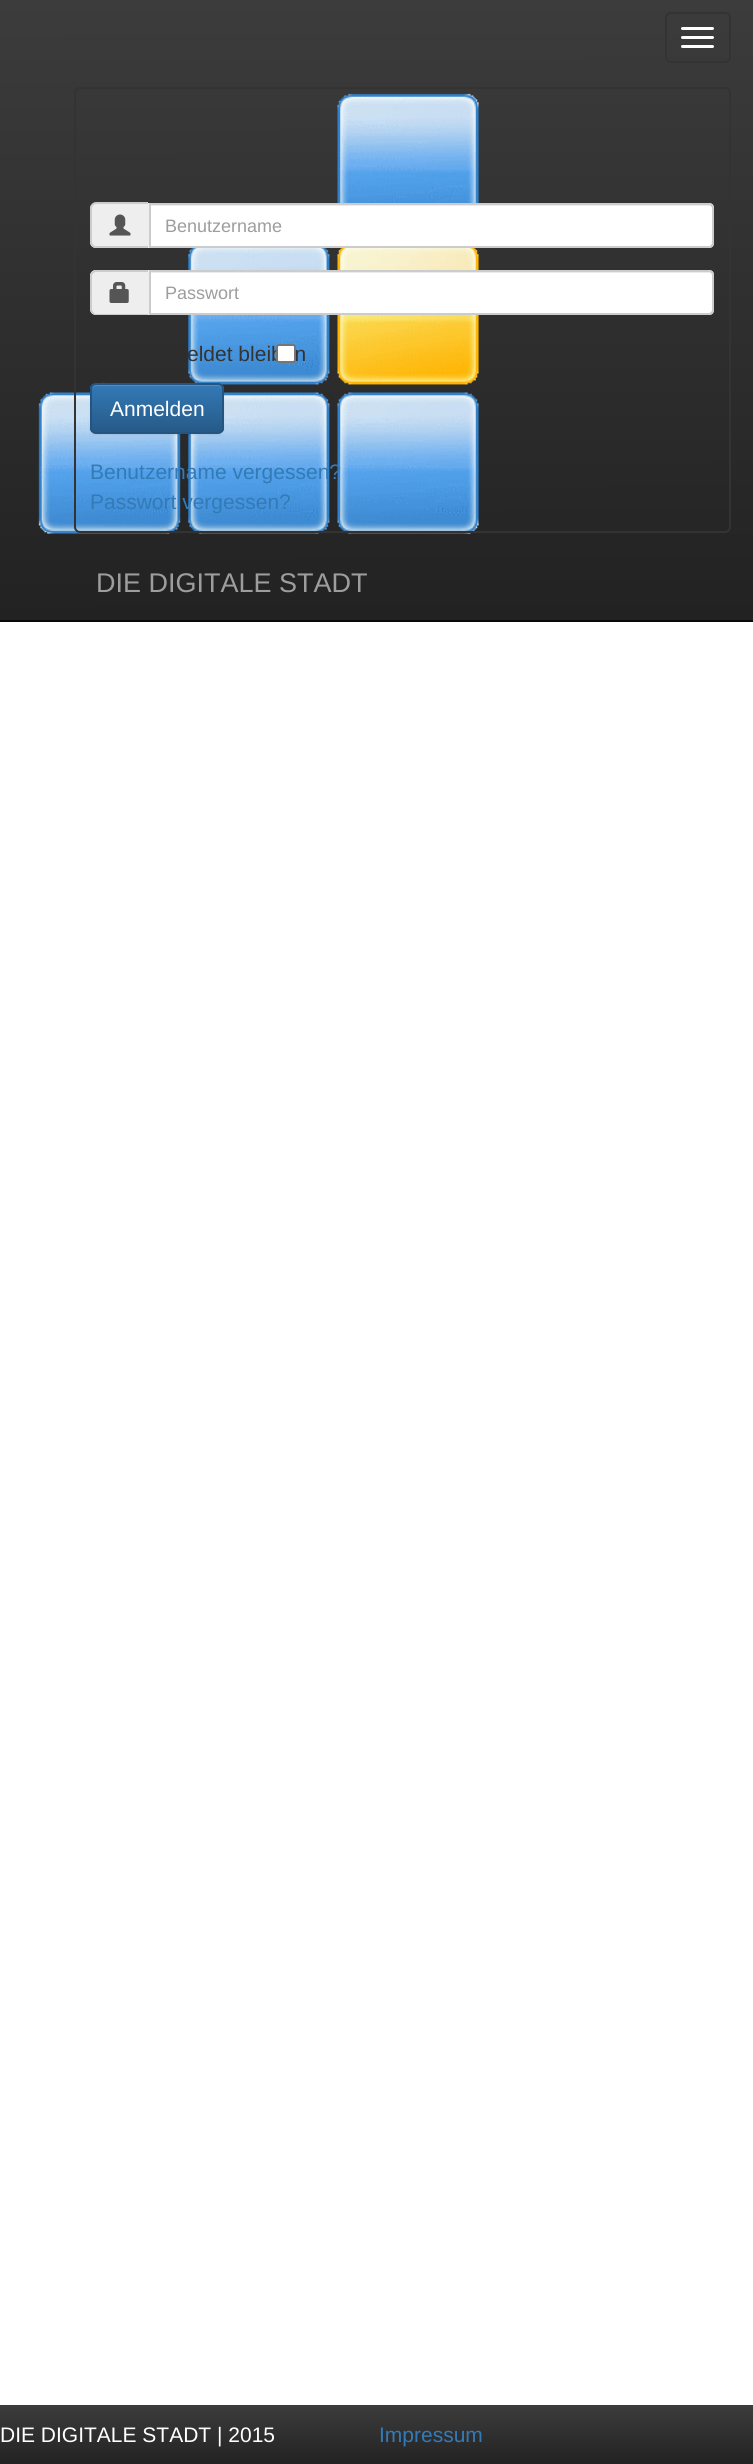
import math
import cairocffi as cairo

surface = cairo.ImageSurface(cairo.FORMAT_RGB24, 753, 2464)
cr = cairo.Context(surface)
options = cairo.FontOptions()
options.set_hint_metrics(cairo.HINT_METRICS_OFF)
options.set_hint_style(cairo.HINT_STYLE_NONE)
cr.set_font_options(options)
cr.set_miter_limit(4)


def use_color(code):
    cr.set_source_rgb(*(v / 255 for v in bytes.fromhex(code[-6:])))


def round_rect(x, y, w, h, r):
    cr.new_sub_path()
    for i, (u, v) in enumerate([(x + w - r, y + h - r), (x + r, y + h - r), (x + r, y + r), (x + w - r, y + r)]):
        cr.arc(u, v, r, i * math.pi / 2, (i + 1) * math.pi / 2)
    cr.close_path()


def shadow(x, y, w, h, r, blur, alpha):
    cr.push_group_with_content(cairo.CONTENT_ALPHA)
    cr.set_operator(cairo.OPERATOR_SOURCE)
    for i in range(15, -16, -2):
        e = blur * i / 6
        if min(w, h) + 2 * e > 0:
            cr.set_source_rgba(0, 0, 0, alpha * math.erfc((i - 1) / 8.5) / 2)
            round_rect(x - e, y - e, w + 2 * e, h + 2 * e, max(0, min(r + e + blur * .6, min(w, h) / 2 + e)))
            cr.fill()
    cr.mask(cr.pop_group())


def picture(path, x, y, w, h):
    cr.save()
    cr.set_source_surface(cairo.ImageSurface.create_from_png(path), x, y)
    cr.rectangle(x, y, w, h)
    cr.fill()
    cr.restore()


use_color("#ffffff")
cr.paint()
gradient = cairo.LinearGradient(376, 0, 377, 620)
gradient.add_color_stop_rgba(0, 0.235, 0.235, 0.235, 1)
gradient.add_color_stop_rgba(1, 0.133, 0.133, 0.133, 1)
cr.set_source(gradient)
cr.rectangle(0, 0, 753, 620)
cr.fill()
use_color("#080808")
cr.rectangle(0, 620, 753, 2)
cr.fill()
picture("img1.png", 38, 93, 441, 441)
round_rect(666, 13, 64, 49, 5)
use_color("#333333")
cr.stroke()
use_color("#ffffff")
round_rect(681, 27, 33, 3, 1.5)
cr.fill()
round_rect(681, 36, 33, 3, 1.5)
cr.fill()
round_rect(681, 45, 33, 3, 1.5)
cr.fill()
round_rect(75, 88, 655, 444, 5)
use_color("#333333")
cr.stroke()
use_color("#eeeeee")
cr.new_path()
cr.move_to(96, 203)
cr.line_to(149, 203)
cr.line_to(149, 248)
cr.line_to(96, 248)
cr.curve_to(92.5, 248, 90, 245.5, 90, 242)
cr.line_to(90, 209)
cr.curve_to(90, 205.5, 92.5, 203, 96, 203)
cr.close_path()
cr.fill()
use_color("#cccccc")
cr.set_fill_rule(cairo.FILL_RULE_EVEN_ODD)
cr.new_path()
cr.move_to(96, 202)
cr.line_to(148, 202)
cr.line_to(148, 248)
cr.line_to(96, 248)
cr.curve_to(93, 248, 90, 245, 90, 242)
cr.line_to(90, 208)
cr.curve_to(90, 205, 93, 202, 96, 202)
cr.close_path()
cr.move_to(96, 204)
cr.line_to(148, 204)
cr.line_to(148, 246)
cr.line_to(96, 246)
cr.curve_to(94, 246, 92, 244, 92, 242)
cr.line_to(92, 208)
cr.curve_to(92, 206, 94, 204, 96, 204)
cr.close_path()
cr.fill()
picture("img2.png", 109, 214, 22, 22)
use_color("#ffffff")
cr.new_path()
cr.move_to(149, 203)
cr.line_to(709, 203)
cr.curve_to(712, 203, 714, 205, 714, 208)
cr.line_to(714, 243)
cr.curve_to(714, 246, 712, 248, 709, 248)
cr.line_to(149, 248)
cr.close_path()
cr.fill()
use_color("#ececec")
cr.set_fill_rule(cairo.FILL_RULE_WINDING)
cr.new_path()
cr.move_to(150, 206)
cr.line_to(710, 206)
cr.curve_to(711, 206, 712, 207, 712, 208)
cr.line_to(712, 245)
cr.curve_to(713, 245, 713, 244, 713, 243)
cr.line_to(713, 207)
cr.curve_to(713, 205, 712, 204, 710, 204)
cr.line_to(150, 204)
cr.close_path()
cr.fill()
cr.new_path()
cr.move_to(150, 204)
cr.line_to(709, 204)
cr.curve_to(711, 204, 713, 206, 713, 208)
cr.line_to(713, 243)
cr.curve_to(713, 245, 711, 247, 709, 247)
cr.line_to(150, 247)
cr.close_path()
use_color("#cccccc")
cr.stroke()
cr.select_font_face("Liberation Sans")
cr.set_font_size(18)
use_color("#9d9d9d")
cr.move_to(165, 232)
cr.show_text("Benutzername")
use_color("#eeeeee")
cr.new_path()
cr.move_to(96, 270)
cr.line_to(149, 270)
cr.line_to(149, 315)
cr.line_to(96, 315)
cr.curve_to(92.5, 315, 90, 312.5, 90, 309)
cr.line_to(90, 276)
cr.curve_to(90, 272.5, 92.5, 270, 96, 270)
cr.close_path()
cr.fill()
use_color("#cccccc")
cr.set_fill_rule(cairo.FILL_RULE_EVEN_ODD)
cr.new_path()
cr.move_to(96, 270)
cr.line_to(148, 270)
cr.line_to(148, 315)
cr.line_to(96, 315)
cr.curve_to(93, 315, 90, 312, 90, 309)
cr.line_to(90, 276)
cr.curve_to(90, 273, 93, 270, 96, 270)
cr.close_path()
cr.move_to(96, 272)
cr.line_to(148, 272)
cr.line_to(148, 314)
cr.line_to(96, 314)
cr.curve_to(94, 314, 92, 311, 92, 309)
cr.line_to(92, 276)
cr.curve_to(92, 274, 94, 272, 96, 272)
cr.close_path()
cr.fill()
picture("img3.png", 109, 282, 20, 21)
use_color("#ffffff")
cr.new_path()
cr.move_to(149, 270)
cr.line_to(709, 270)
cr.curve_to(712, 270, 714, 272, 714, 275)
cr.line_to(714, 310)
cr.curve_to(714, 313, 712, 315, 709, 315)
cr.line_to(149, 315)
cr.close_path()
cr.fill()
use_color("#ececec")
cr.set_fill_rule(cairo.FILL_RULE_WINDING)
cr.new_path()
cr.move_to(150, 273)
cr.line_to(710, 273)
cr.curve_to(711, 273, 712, 274, 712, 276)
cr.line_to(712, 313)
cr.curve_to(713, 313, 713, 312, 713, 311)
cr.line_to(713, 275)
cr.curve_to(713, 273, 712, 272, 710, 272)
cr.line_to(150, 272)
cr.close_path()
cr.fill()
cr.new_path()
cr.move_to(150, 271)
cr.line_to(709, 271)
cr.curve_to(711, 271, 713, 273, 713, 275)
cr.line_to(713, 310)
cr.curve_to(713, 312, 711, 314, 709, 314)
cr.line_to(150, 314)
cr.close_path()
use_color("#cccccc")
cr.stroke()
use_color("#9d9d9d")
cr.move_to(165, 299)
cr.show_text("Passwort")
cr.set_font_size(21)
use_color("#333333")
cr.move_to(187, 361)
cr.show_text("eldet bleiben")
use_color("#ffffff")
round_rect(277, 345, 18, 17, 2)
cr.fill_preserve()
use_color("#767676")
cr.stroke()
use_color("#000000")
shadow(90, 384, 134, 51, 6, 1, 0.07)
cr.save()
round_rect(90, 383, 134, 51, 6)
cr.clip()
gradient = cairo.LinearGradient(157, 384, 157, 432)
gradient.add_color_stop_rgba(0, 0.2, 0.478, 0.718, 1)
gradient.add_color_stop_rgba(1, 0.149, 0.353, 0.533, 1)
cr.set_source(gradient)
cr.rectangle(90, 384, 134, 48)
cr.fill()
cr.restore()
use_color("#528ec1")
cr.new_path()
cr.move_to(96, 386)
cr.line_to(218, 386)
cr.curve_to(220, 386, 222, 388, 222, 390)
cr.curve_to(222, 379, 201, 384, 197, 384)
cr.line_to(117, 384)
cr.curve_to(113, 384, 92, 379, 92, 390)
cr.curve_to(92, 388, 94, 386, 96, 386)
cr.close_path()
cr.fill()
round_rect(91, 384, 132, 49, 5)
use_color("#245580")
cr.stroke()
use_color("#ffffff")
cr.move_to(110, 416)
cr.show_text("Anmelden")
use_color("#337ab7")
cr.move_to(90, 479)
cr.show_text("Benutzername vergessen?")
cr.move_to(90, 509)
cr.show_text("Passwort vergessen?")
cr.set_font_size(27)
use_color("#9d9d9d")
cr.move_to(96, 592)
cr.show_text("DIE DIGITALE STADT")
gradient = cairo.LinearGradient(377, 2405, 377, 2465)
gradient.add_color_stop_rgba(0, 0.235, 0.235, 0.235, 1)
gradient.add_color_stop_rgba(1, 0.133, 0.133, 0.133, 1)
cr.set_source(gradient)
cr.rectangle(0, 2405, 753, 59)
cr.fill()
cr.set_font_size(21)
use_color("#ffffff")
cr.move_to(0, 2442)
cr.show_text("DIE DIGITALE STADT | 2015")
use_color("#337ab7")
cr.move_to(379, 2442)
cr.show_text("Impressum")
surface.write_to_png("result.png")
